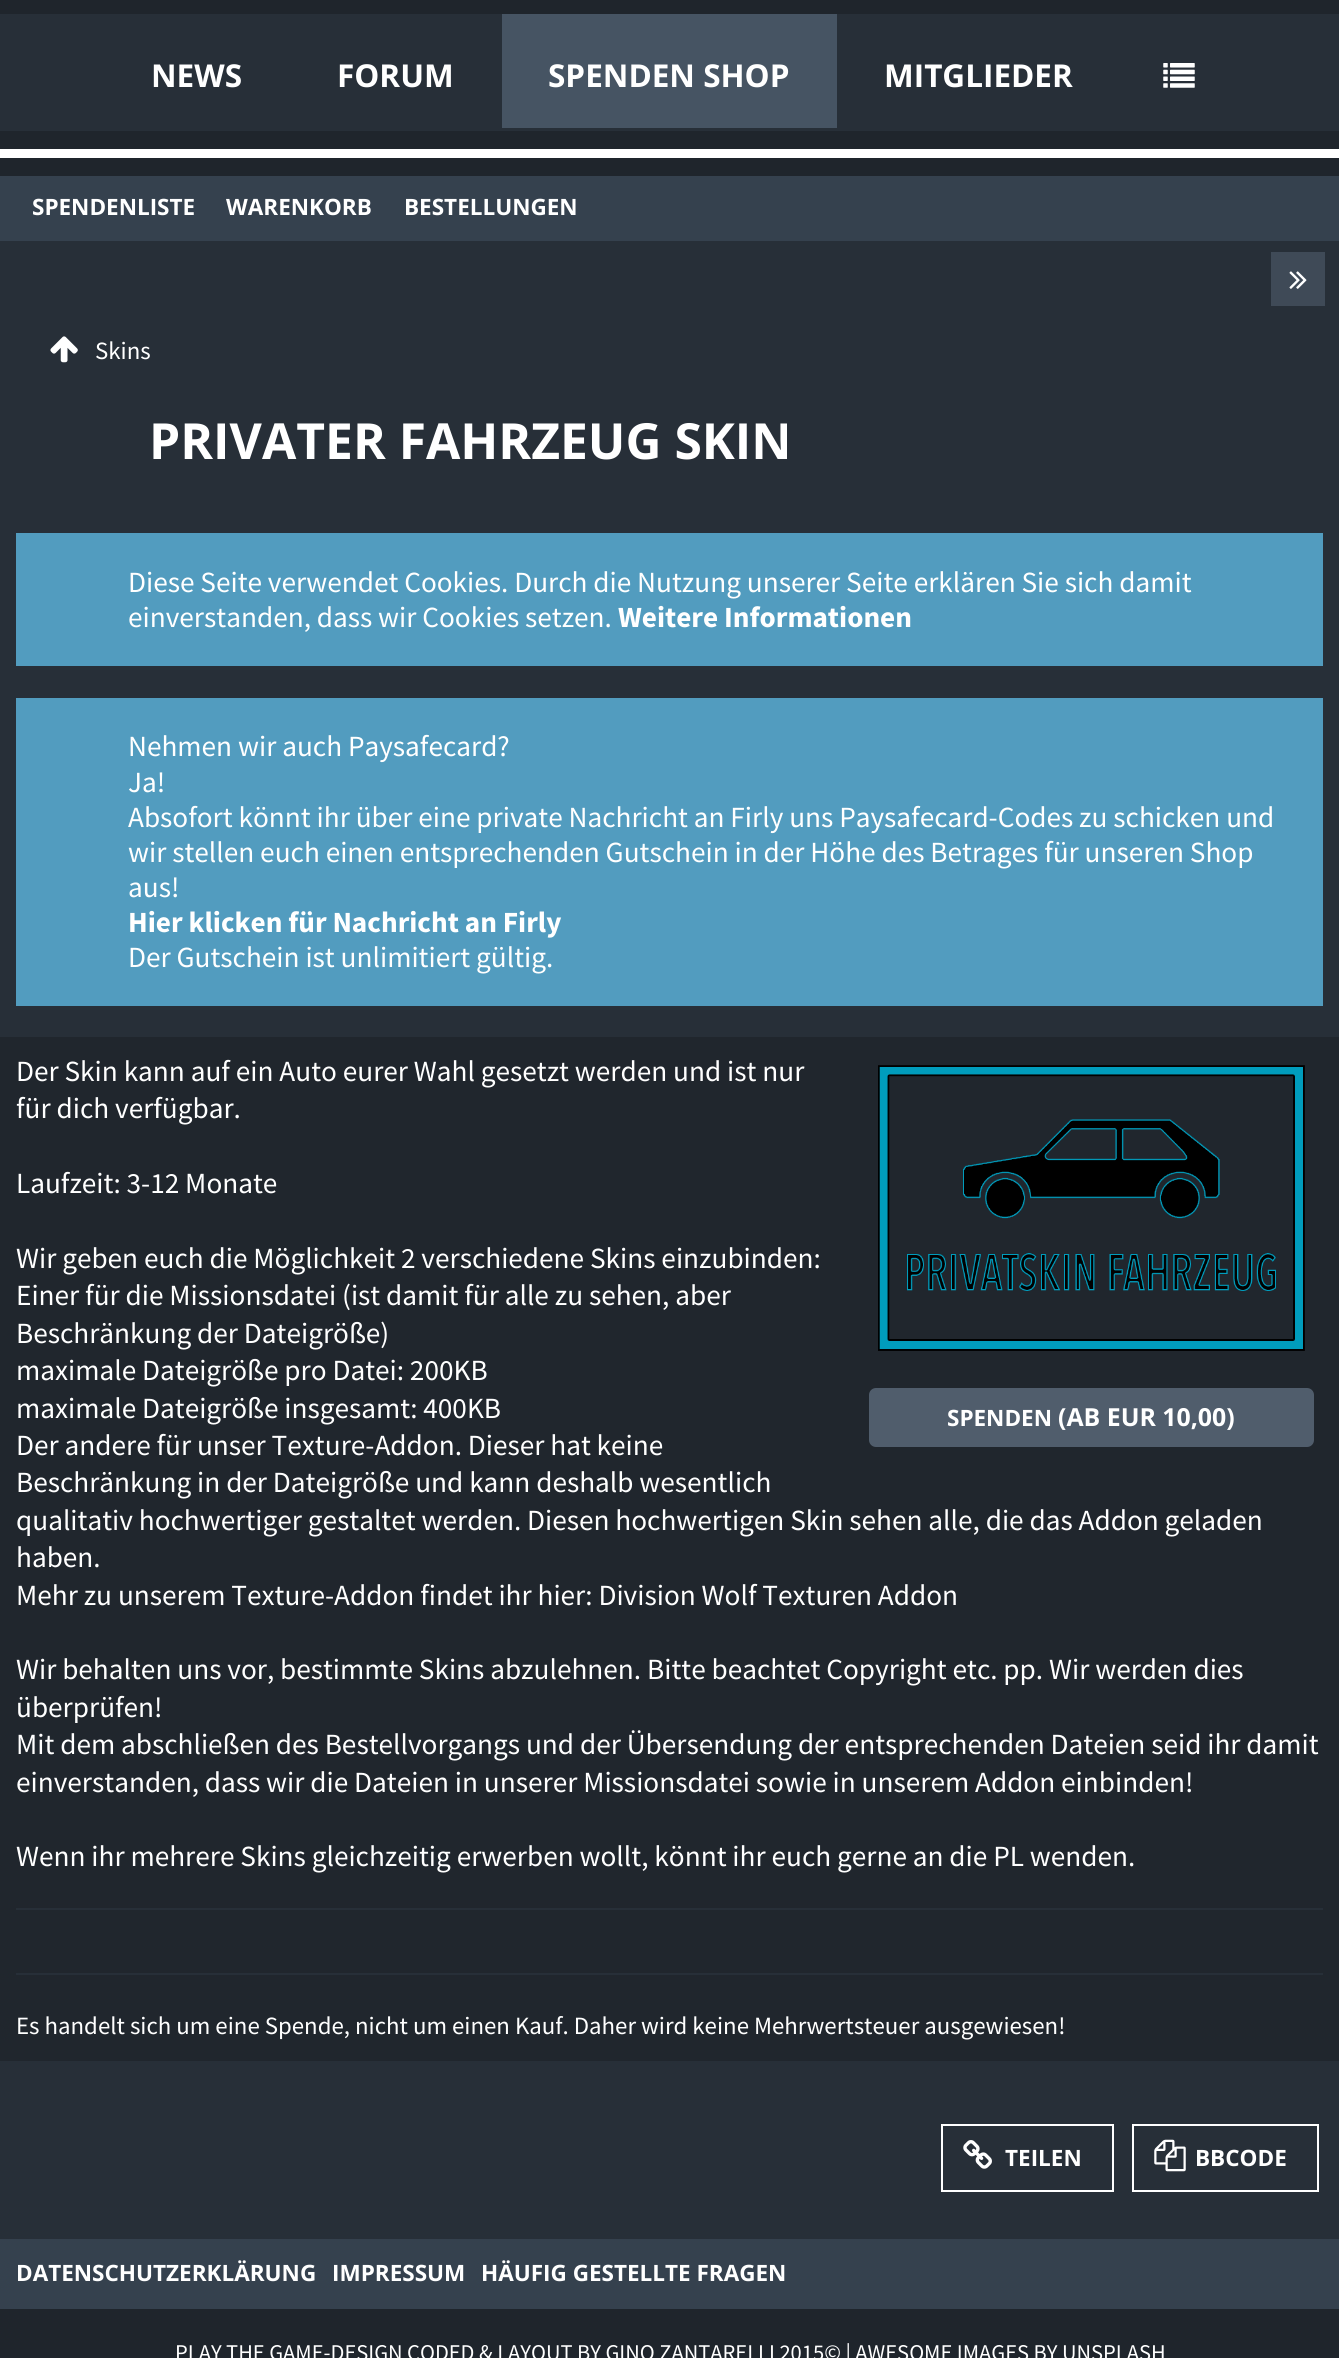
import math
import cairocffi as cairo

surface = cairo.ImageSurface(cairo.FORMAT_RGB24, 1339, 2358)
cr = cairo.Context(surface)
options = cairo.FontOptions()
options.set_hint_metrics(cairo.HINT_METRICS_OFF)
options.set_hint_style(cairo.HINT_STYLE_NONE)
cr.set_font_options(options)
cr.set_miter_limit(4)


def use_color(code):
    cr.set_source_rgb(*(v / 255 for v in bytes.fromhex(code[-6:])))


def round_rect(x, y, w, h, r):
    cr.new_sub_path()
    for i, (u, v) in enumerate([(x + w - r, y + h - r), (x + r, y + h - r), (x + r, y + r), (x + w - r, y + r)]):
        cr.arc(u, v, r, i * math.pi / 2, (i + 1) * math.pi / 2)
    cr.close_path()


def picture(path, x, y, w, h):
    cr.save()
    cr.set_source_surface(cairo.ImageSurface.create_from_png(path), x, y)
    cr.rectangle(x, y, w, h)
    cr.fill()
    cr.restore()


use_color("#1f252c")
cr.paint()
use_color("#ffffff")
cr.rectangle(0, 149, 1339, 9)
cr.fill()
use_color("#272f38")
cr.rectangle(0, 14, 1339, 117)
cr.fill()
cr.select_font_face("Open Sans", cairo.FONT_SLANT_NORMAL, cairo.FONT_WEIGHT_BOLD)
cr.set_font_size(31.5)
use_color("#ffffff")
cr.move_to(151, 87)
cr.show_text("NEWS")
cr.move_to(337, 87)
cr.show_text("FORUM")
use_color("#465463")
cr.rectangle(502, 14, 335, 114)
cr.fill()
use_color("#ffffff")
cr.move_to(548, 87)
cr.show_text("SPENDEN SHOP")
cr.move_to(884, 87)
cr.show_text("MITGLIEDER")
picture("img1.png", 1163, 63, 32, 25)
use_color("#35414e")
cr.rectangle(0, 176, 1339, 65)
cr.fill()
cr.set_font_size(22.5)
use_color("#ffffff")
cr.move_to(32, 215)
cr.show_text("SPENDENLISTE")
cr.move_to(226, 215)
cr.show_text("WARENKORB")
cr.move_to(404, 215)
cr.show_text("BESTELLUNGEN")
use_color("#272f38")
cr.rectangle(0, 241, 1339, 1998)
cr.fill()
use_color("#3f4a57")
cr.rectangle(1271, 252, 54, 54)
cr.fill()
picture("img2.png", 1289, 271, 18, 18)
picture("img3.png", 50, 336, 28, 27)
cr.select_font_face("Source Sans Pro")
cr.set_font_size(24.85)
use_color("#ffffff")
cr.move_to(95, 359)
cr.show_text("Skins")
cr.select_font_face("Open Sans", cairo.FONT_SLANT_NORMAL, cairo.FONT_WEIGHT_BOLD)
cr.set_font_size(49.75)
cr.move_to(149, 459)
cr.show_text("PRIVATER FAHRZEUG SKIN")
use_color("#529cbf")
cr.rectangle(16, 533, 1307, 133)
cr.fill()
cr.select_font_face("Source Sans Pro")
cr.set_font_size(29.25)
use_color("#ffffff")
cr.move_to(128, 592)
cr.show_text("Diese Seite verwendet Cookies. Durch die Nutzung unserer Seite erklären Sie sich damit")
cr.move_to(128, 627)
cr.show_text("einverstanden, dass wir Cookies setzen.")
cr.select_font_face("Source Sans Pro", cairo.FONT_SLANT_NORMAL, cairo.FONT_WEIGHT_BOLD)
cr.move_to(618, 627)
cr.show_text("Weitere Informationen")
use_color("#529cbf")
cr.rectangle(16, 698, 1307, 308)
cr.fill()
cr.select_font_face("Source Sans Pro")
use_color("#ffffff")
cr.move_to(128, 756)
cr.show_text("Nehmen wir auch Paysafecard?")
cr.move_to(128, 792)
cr.show_text("Ja!")
cr.move_to(128, 827)
cr.show_text("Absofort könnt ihr über eine private Nachricht an Firly uns Paysafecard-Codes zu schicken und")
cr.move_to(128, 862)
cr.show_text("wir stellen euch einen entsprechenden Gutschein in der Höhe des Betrages für unseren Shop")
cr.move_to(128, 897)
cr.show_text("aus!")
cr.select_font_face("Source Sans Pro", cairo.FONT_SLANT_NORMAL, cairo.FONT_WEIGHT_BOLD)
cr.move_to(128, 932)
cr.show_text("Hier klicken für Nachricht an Firly")
cr.select_font_face("Source Sans Pro")
cr.move_to(128, 967)
cr.show_text("Der Gutschein ist unlimitiert gültig.")
use_color("#20262d")
cr.rectangle(0, 1037, 1339, 1024)
cr.fill()
use_color("#ffffff")
cr.move_to(16, 1081)
cr.show_text("Der Skin kann auf ein Auto eurer Wahl gesetzt werden und ist nur")
cr.move_to(16, 1118)
cr.show_text("für dich verfügbar.")
cr.move_to(16, 1193)
cr.show_text("Laufzeit: 3-12 Monate")
cr.move_to(16, 1268)
cr.show_text("Wir geben euch die Möglichkeit 2 verschiedene Skins einzubinden:")
cr.move_to(16, 1305)
cr.show_text("Einer für die Missionsdatei (ist damit für alle zu sehen, aber")
cr.move_to(16, 1343)
cr.show_text("Beschränkung der Dateigröße)")
cr.move_to(16, 1380)
cr.show_text("maximale Dateigröße pro Datei: 200KB")
cr.move_to(16, 1418)
cr.show_text("maximale Dateigröße insgesamt: 400KB")
picture("img4.png", 878, 1065, 427, 286)
use_color("#505d6c")
round_rect(870, 1389, 443, 57, 6)
cr.fill_preserve()
cr.stroke()
cr.select_font_face("Open Sans", cairo.FONT_SLANT_NORMAL, cairo.FONT_WEIGHT_BOLD)
cr.set_font_size(22.5)
use_color("#ffffff")
cr.move_to(947, 1426)
cr.show_text("SPENDEN")
cr.set_font_size(24.85)
cr.move_to(1058, 1426)
cr.show_text("(AB EUR 10,00)")
cr.select_font_face("Source Sans Pro")
cr.set_font_size(29.25)
cr.move_to(16, 1455)
cr.show_text("Der andere für unser Texture-Addon. Dieser hat keine")
cr.move_to(16, 1492)
cr.show_text("Beschränkung in der Dateigröße und kann deshalb wesentlich")
cr.move_to(16, 1530)
cr.show_text("qualitativ hochwertiger gestaltet werden. Diesen hochwertigen Skin sehen alle, die das Addon geladen")
cr.move_to(16, 1567)
cr.show_text("haben.")
cr.move_to(16, 1605)
cr.show_text("Mehr zu unserem Texture-Addon findet ihr hier: Division Wolf Texturen Addon")
cr.move_to(16, 1679)
cr.show_text("Wir behalten uns vor, bestimmte Skins abzulehnen. Bitte beachtet Copyright etc. pp. Wir werden dies")
cr.move_to(16, 1717)
cr.show_text("überprüfen!")
cr.move_to(16, 1754)
cr.show_text("Mit dem abschließen des Bestellvorgangs und der Übersendung der entsprechenden Dateien seid ihr damit")
cr.move_to(16, 1792)
cr.show_text("einverstanden, dass wir die Dateien in unserer Missionsdatei sowie in unserem Addon einbinden!")
cr.move_to(16, 1866)
cr.show_text("Wenn ihr mehrere Skins gleichzeitig erwerben wollt, könnt ihr euch gerne an die PL wenden.")
use_color("#272f38")
cr.rectangle(16, 1908, 1307, 2)
cr.fill()
cr.rectangle(16, 1973, 1307, 2)
cr.fill()
cr.set_font_size(24.85)
use_color("#ffffff")
cr.move_to(16, 2034)
cr.show_text("Es handelt sich um eine Spende, nicht um einen Kauf. Daher wird keine Mehrwertsteuer ausgewiesen!")
cr.rectangle(942, 2125, 171, 66)
cr.stroke()
picture("img5.png", 963, 2140, 29, 29)
cr.select_font_face("Open Sans", cairo.FONT_SLANT_NORMAL, cairo.FONT_WEIGHT_BOLD)
cr.set_font_size(22.5)
cr.move_to(1005, 2166)
cr.show_text("TEILEN")
cr.rectangle(1133, 2125, 185, 66)
cr.stroke()
picture("img6.png", 1154, 2139, 32, 33)
cr.move_to(1195, 2166)
cr.show_text("BBCODE")
use_color("#35414e")
cr.rectangle(0, 2239, 1339, 70)
cr.fill()
use_color("#ffffff")
cr.move_to(16, 2281)
cr.show_text("DATENSCHUTZERKLÄRUNG")
cr.move_to(332, 2281)
cr.show_text("IMPRESSUM")
cr.move_to(481, 2281)
cr.show_text("HÄUFIG GESTELLTE FRAGEN")
cr.select_font_face("Source Sans Pro")
cr.move_to(175, 2360)
cr.show_text("PLAY THE GAME-DESIGN CODED & LAYOUT BY GINO ZANTARELLI 2015© | AWESOME IMAGES BY UNSPLASH")
surface.write_to_png("result.png")
